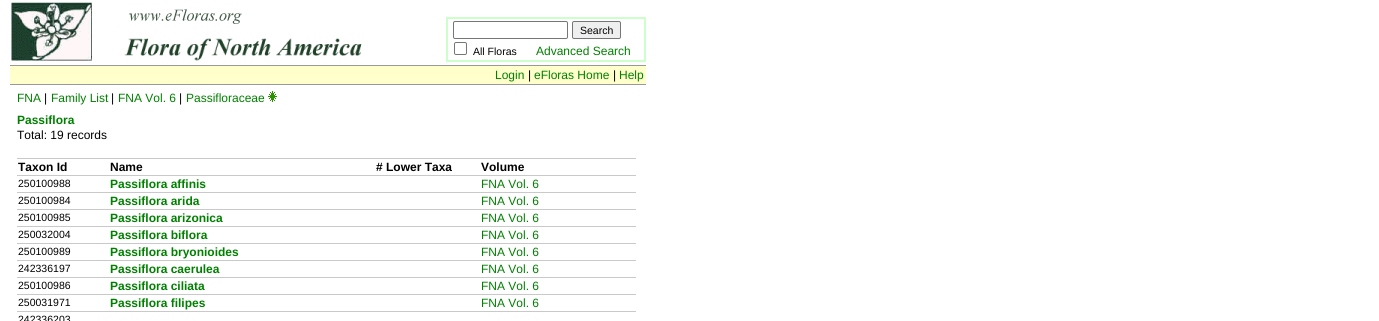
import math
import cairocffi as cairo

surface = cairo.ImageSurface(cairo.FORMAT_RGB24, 1379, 321)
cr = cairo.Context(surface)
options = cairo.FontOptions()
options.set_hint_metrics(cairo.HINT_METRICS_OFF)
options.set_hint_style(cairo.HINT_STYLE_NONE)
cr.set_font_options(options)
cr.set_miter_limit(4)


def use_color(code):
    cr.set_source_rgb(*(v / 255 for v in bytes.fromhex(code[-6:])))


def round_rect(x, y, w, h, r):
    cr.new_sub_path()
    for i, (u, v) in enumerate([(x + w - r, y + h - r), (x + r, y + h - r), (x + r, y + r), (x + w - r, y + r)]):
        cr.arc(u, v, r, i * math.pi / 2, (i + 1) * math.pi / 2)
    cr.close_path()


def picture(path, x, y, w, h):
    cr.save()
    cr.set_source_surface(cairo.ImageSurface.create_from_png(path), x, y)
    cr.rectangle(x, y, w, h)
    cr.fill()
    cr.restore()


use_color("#ffffff")
cr.paint()
picture("img1.png", 11, 2, 351, 59)
cr.rectangle(446.5, 17.5, 199, 44)
use_color("#ccffcc")
cr.set_line_width(1)
cr.stroke()
cr.rectangle(447.5, 18.5, 197, 42)
cr.stroke()
round_rect(453.5, 21.5, 114, 17, 1.5)
use_color("#767676")
cr.stroke()
use_color("#efefef")
round_rect(572.5, 21.5, 48, 17, 1.5)
cr.fill_preserve()
use_color("#767676")
cr.stroke()
cr.select_font_face("Liberation Sans")
cr.set_font_size(10.5)
use_color("#000000")
cr.move_to(580, 34)
cr.show_text("Search")
round_rect(454.5, 42.5, 12, 12, 1.5)
use_color("#767676")
cr.stroke()
use_color("#000000")
cr.move_to(473, 55)
cr.show_text("All Floras")
cr.set_font_size(12)
use_color("#008000")
cr.move_to(536, 55)
cr.show_text("Advanced Search")
use_color("#999999")
cr.rectangle(10, 65, 636, 1)
cr.fill()
use_color("#ffffcc")
cr.rectangle(10, 66, 636, 18)
cr.fill()
use_color("#008000")
cr.move_to(495, 79)
cr.show_text("Login")
use_color("#000000")
cr.move_to(528, 79)
cr.show_text("|")
use_color("#008000")
cr.move_to(534, 79)
cr.show_text("eFloras Home")
use_color("#000000")
cr.move_to(613, 79)
cr.show_text("|")
use_color("#008000")
cr.move_to(619, 79)
cr.show_text("Help")
use_color("#999999")
cr.rectangle(10, 84, 636, 1)
cr.fill()
use_color("#008000")
cr.move_to(17, 102)
cr.show_text("FNA")
use_color("#000000")
cr.move_to(44, 102)
cr.show_text("|")
use_color("#008000")
cr.move_to(51, 102)
cr.show_text("Family List")
use_color("#000000")
cr.move_to(111, 102)
cr.show_text("|")
use_color("#008000")
cr.move_to(118, 102)
cr.show_text("FNA Vol. 6")
use_color("#000000")
cr.move_to(179, 102)
cr.show_text("|")
use_color("#008000")
cr.move_to(186, 102)
cr.show_text("Passifloraceae")
picture("img2.png", 268, 91, 9, 11)
cr.select_font_face("Liberation Sans", cairo.FONT_SLANT_NORMAL, cairo.FONT_WEIGHT_BOLD)
cr.move_to(17, 124)
cr.show_text("Passiflora")
cr.select_font_face("Liberation Sans")
use_color("#000000")
cr.move_to(17, 139)
cr.show_text("Total: 19 records")
use_color("#c9c9c9")
cr.rectangle(17, 158, 619, 1)
cr.fill()
cr.rectangle(17, 175, 619, 1)
cr.fill()
cr.select_font_face("Liberation Sans", cairo.FONT_SLANT_NORMAL, cairo.FONT_WEIGHT_BOLD)
use_color("#000000")
cr.move_to(18, 171)
cr.show_text("Taxon Id")
cr.move_to(110, 171)
cr.show_text("Name")
cr.move_to(376, 171)
cr.show_text("# Lower Taxa")
cr.move_to(481, 171)
cr.show_text("Volume")
use_color("#c9c9c9")
cr.rectangle(17, 192, 619, 1)
cr.fill()
cr.select_font_face("Liberation Sans")
cr.set_font_size(10.5)
use_color("#000000")
cr.move_to(18, 187)
cr.show_text("250100988")
cr.select_font_face("Liberation Sans", cairo.FONT_SLANT_NORMAL, cairo.FONT_WEIGHT_BOLD)
cr.set_font_size(12)
use_color("#008000")
cr.move_to(110, 188)
cr.show_text("Passiflora affinis")
cr.select_font_face("Liberation Sans")
cr.move_to(481, 188)
cr.show_text("FNA Vol. 6")
use_color("#c9c9c9")
cr.rectangle(17, 209, 619, 1)
cr.fill()
cr.set_font_size(10.5)
use_color("#000000")
cr.move_to(18, 204)
cr.show_text("250100984")
cr.select_font_face("Liberation Sans", cairo.FONT_SLANT_NORMAL, cairo.FONT_WEIGHT_BOLD)
cr.set_font_size(12)
use_color("#008000")
cr.move_to(110, 205)
cr.show_text("Passiflora arida")
cr.select_font_face("Liberation Sans")
cr.move_to(481, 205)
cr.show_text("FNA Vol. 6")
use_color("#c9c9c9")
cr.rectangle(17, 226, 619, 1)
cr.fill()
cr.set_font_size(10.5)
use_color("#000000")
cr.move_to(18, 221)
cr.show_text("250100985")
cr.select_font_face("Liberation Sans", cairo.FONT_SLANT_NORMAL, cairo.FONT_WEIGHT_BOLD)
cr.set_font_size(12)
use_color("#008000")
cr.move_to(110, 222)
cr.show_text("Passiflora arizonica")
cr.select_font_face("Liberation Sans")
cr.move_to(481, 222)
cr.show_text("FNA Vol. 6")
use_color("#c9c9c9")
cr.rectangle(17, 243, 619, 1)
cr.fill()
cr.set_font_size(10.5)
use_color("#000000")
cr.move_to(18, 238)
cr.show_text("250032004")
cr.select_font_face("Liberation Sans", cairo.FONT_SLANT_NORMAL, cairo.FONT_WEIGHT_BOLD)
cr.set_font_size(12)
use_color("#008000")
cr.move_to(110, 239)
cr.show_text("Passiflora biflora")
cr.select_font_face("Liberation Sans")
cr.move_to(481, 239)
cr.show_text("FNA Vol. 6")
use_color("#c9c9c9")
cr.rectangle(17, 260, 619, 1)
cr.fill()
cr.set_font_size(10.5)
use_color("#000000")
cr.move_to(18, 255)
cr.show_text("250100989")
cr.select_font_face("Liberation Sans", cairo.FONT_SLANT_NORMAL, cairo.FONT_WEIGHT_BOLD)
cr.set_font_size(12)
use_color("#008000")
cr.move_to(110, 256)
cr.show_text("Passiflora bryonioides")
cr.select_font_face("Liberation Sans")
cr.move_to(481, 256)
cr.show_text("FNA Vol. 6")
use_color("#c9c9c9")
cr.rectangle(17, 277, 619, 1)
cr.fill()
cr.set_font_size(10.5)
use_color("#000000")
cr.move_to(18, 272)
cr.show_text("242336197")
cr.select_font_face("Liberation Sans", cairo.FONT_SLANT_NORMAL, cairo.FONT_WEIGHT_BOLD)
cr.set_font_size(12)
use_color("#008000")
cr.move_to(110, 273)
cr.show_text("Passiflora caerulea")
cr.select_font_face("Liberation Sans")
cr.move_to(481, 273)
cr.show_text("FNA Vol. 6")
use_color("#c9c9c9")
cr.rectangle(17, 294, 619, 1)
cr.fill()
cr.set_font_size(10.5)
use_color("#000000")
cr.move_to(18, 289)
cr.show_text("250100986")
cr.select_font_face("Liberation Sans", cairo.FONT_SLANT_NORMAL, cairo.FONT_WEIGHT_BOLD)
cr.set_font_size(12)
use_color("#008000")
cr.move_to(110, 290)
cr.show_text("Passiflora ciliata")
cr.select_font_face("Liberation Sans")
cr.move_to(481, 290)
cr.show_text("FNA Vol. 6")
use_color("#c9c9c9")
cr.rectangle(17, 311, 619, 1)
cr.fill()
cr.set_font_size(10.5)
use_color("#000000")
cr.move_to(18, 306)
cr.show_text("250031971")
cr.select_font_face("Liberation Sans", cairo.FONT_SLANT_NORMAL, cairo.FONT_WEIGHT_BOLD)
cr.set_font_size(12)
use_color("#008000")
cr.move_to(110, 307)
cr.show_text("Passiflora filipes")
cr.select_font_face("Liberation Sans")
cr.move_to(481, 307)
cr.show_text("FNA Vol. 6")
cr.set_font_size(10.5)
use_color("#000000")
cr.move_to(18, 323)
cr.show_text("242336203")
surface.write_to_png("result.png")
